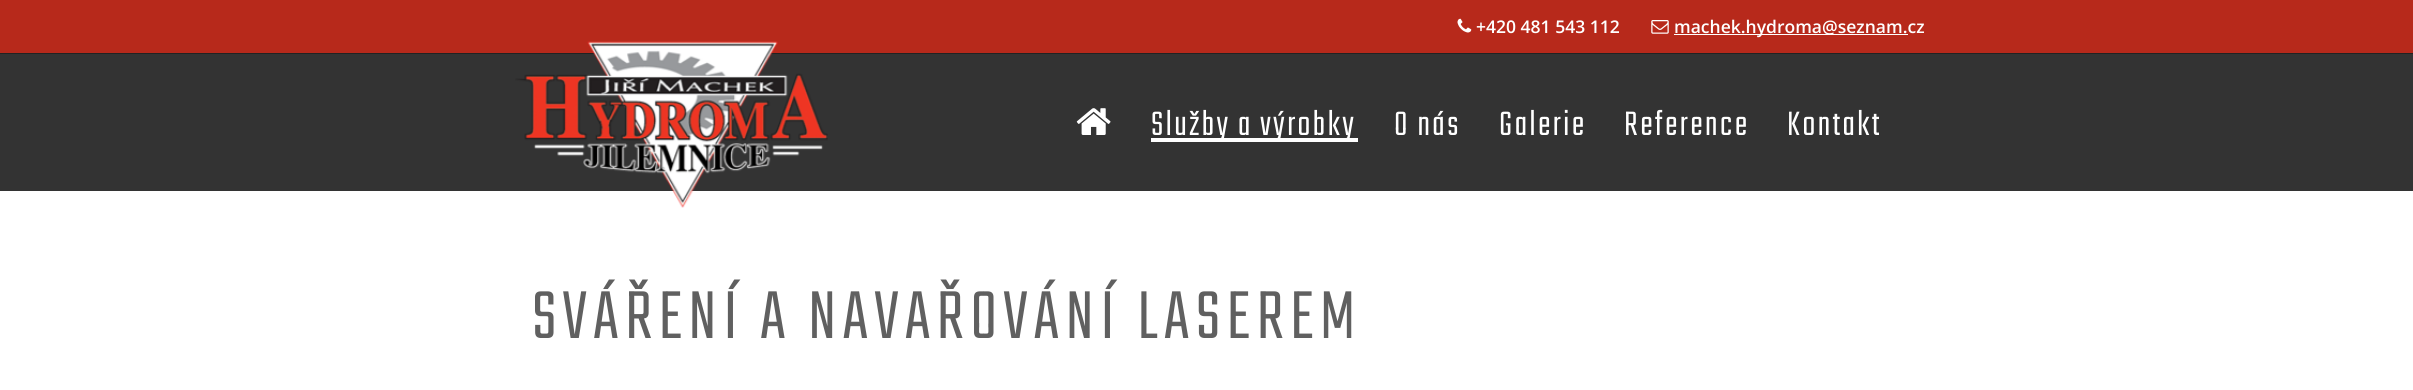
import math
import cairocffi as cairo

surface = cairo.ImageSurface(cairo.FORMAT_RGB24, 2413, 390)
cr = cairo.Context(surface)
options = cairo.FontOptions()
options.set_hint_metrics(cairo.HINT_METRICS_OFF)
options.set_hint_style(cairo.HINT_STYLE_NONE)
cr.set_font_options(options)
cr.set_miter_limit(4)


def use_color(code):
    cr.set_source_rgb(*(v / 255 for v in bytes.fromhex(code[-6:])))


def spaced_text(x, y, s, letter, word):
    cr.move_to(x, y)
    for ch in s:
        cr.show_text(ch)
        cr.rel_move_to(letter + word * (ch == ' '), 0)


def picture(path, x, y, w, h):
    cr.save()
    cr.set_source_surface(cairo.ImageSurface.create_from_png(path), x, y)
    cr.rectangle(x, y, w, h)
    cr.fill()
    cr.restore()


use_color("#b7291b")
cr.paint()
use_color("#222222")
cr.rectangle(0, 53, 2413, 1)
cr.fill()
picture("img1.png", 1457, 18, 15, 15)
cr.select_font_face("Open Sans SemiBold")
cr.set_font_size(17.5)
use_color("#ffffff")
cr.move_to(1476, 33)
cr.show_text("+420 481 543 112")
picture("img2.png", 1651, 20, 18, 14)
cr.rectangle(1674, 34, 234, 1)
cr.fill()
cr.move_to(1674, 33)
cr.show_text("machek.hydroma@seznam.cz")
use_color("#333333")
cr.rectangle(0, 54, 2413, 137)
cr.fill()
use_color("#ffffff")
cr.rectangle(0, 191, 2413, 199)
cr.fill()
picture("img3.png", 515, 41, 313, 167)
picture("img4.png", 1076, 108, 35, 27)
cr.rectangle(1151, 138, 207, 4)
cr.fill()
cr.select_font_face("Teko Light")
cr.set_font_size(37.5)
spaced_text(1151, 135, "Služby a výrobky", 2.5, 0)
spaced_text(1394, 135, "O nás", 2.5, 0)
spaced_text(1499, 135, "Galerie", 2.5, 0)
spaced_text(1624, 135, "Reference", 2.5, 0)
spaced_text(1787, 135, "Kontakt", 2.5, 0)
cr.set_font_size(75)
use_color("#606060")
spaced_text(532, 338, "SVÁŘENÍ A NAVAŘOVÁNÍ LASEREM", 6.25, 0)
surface.write_to_png("result.png")
